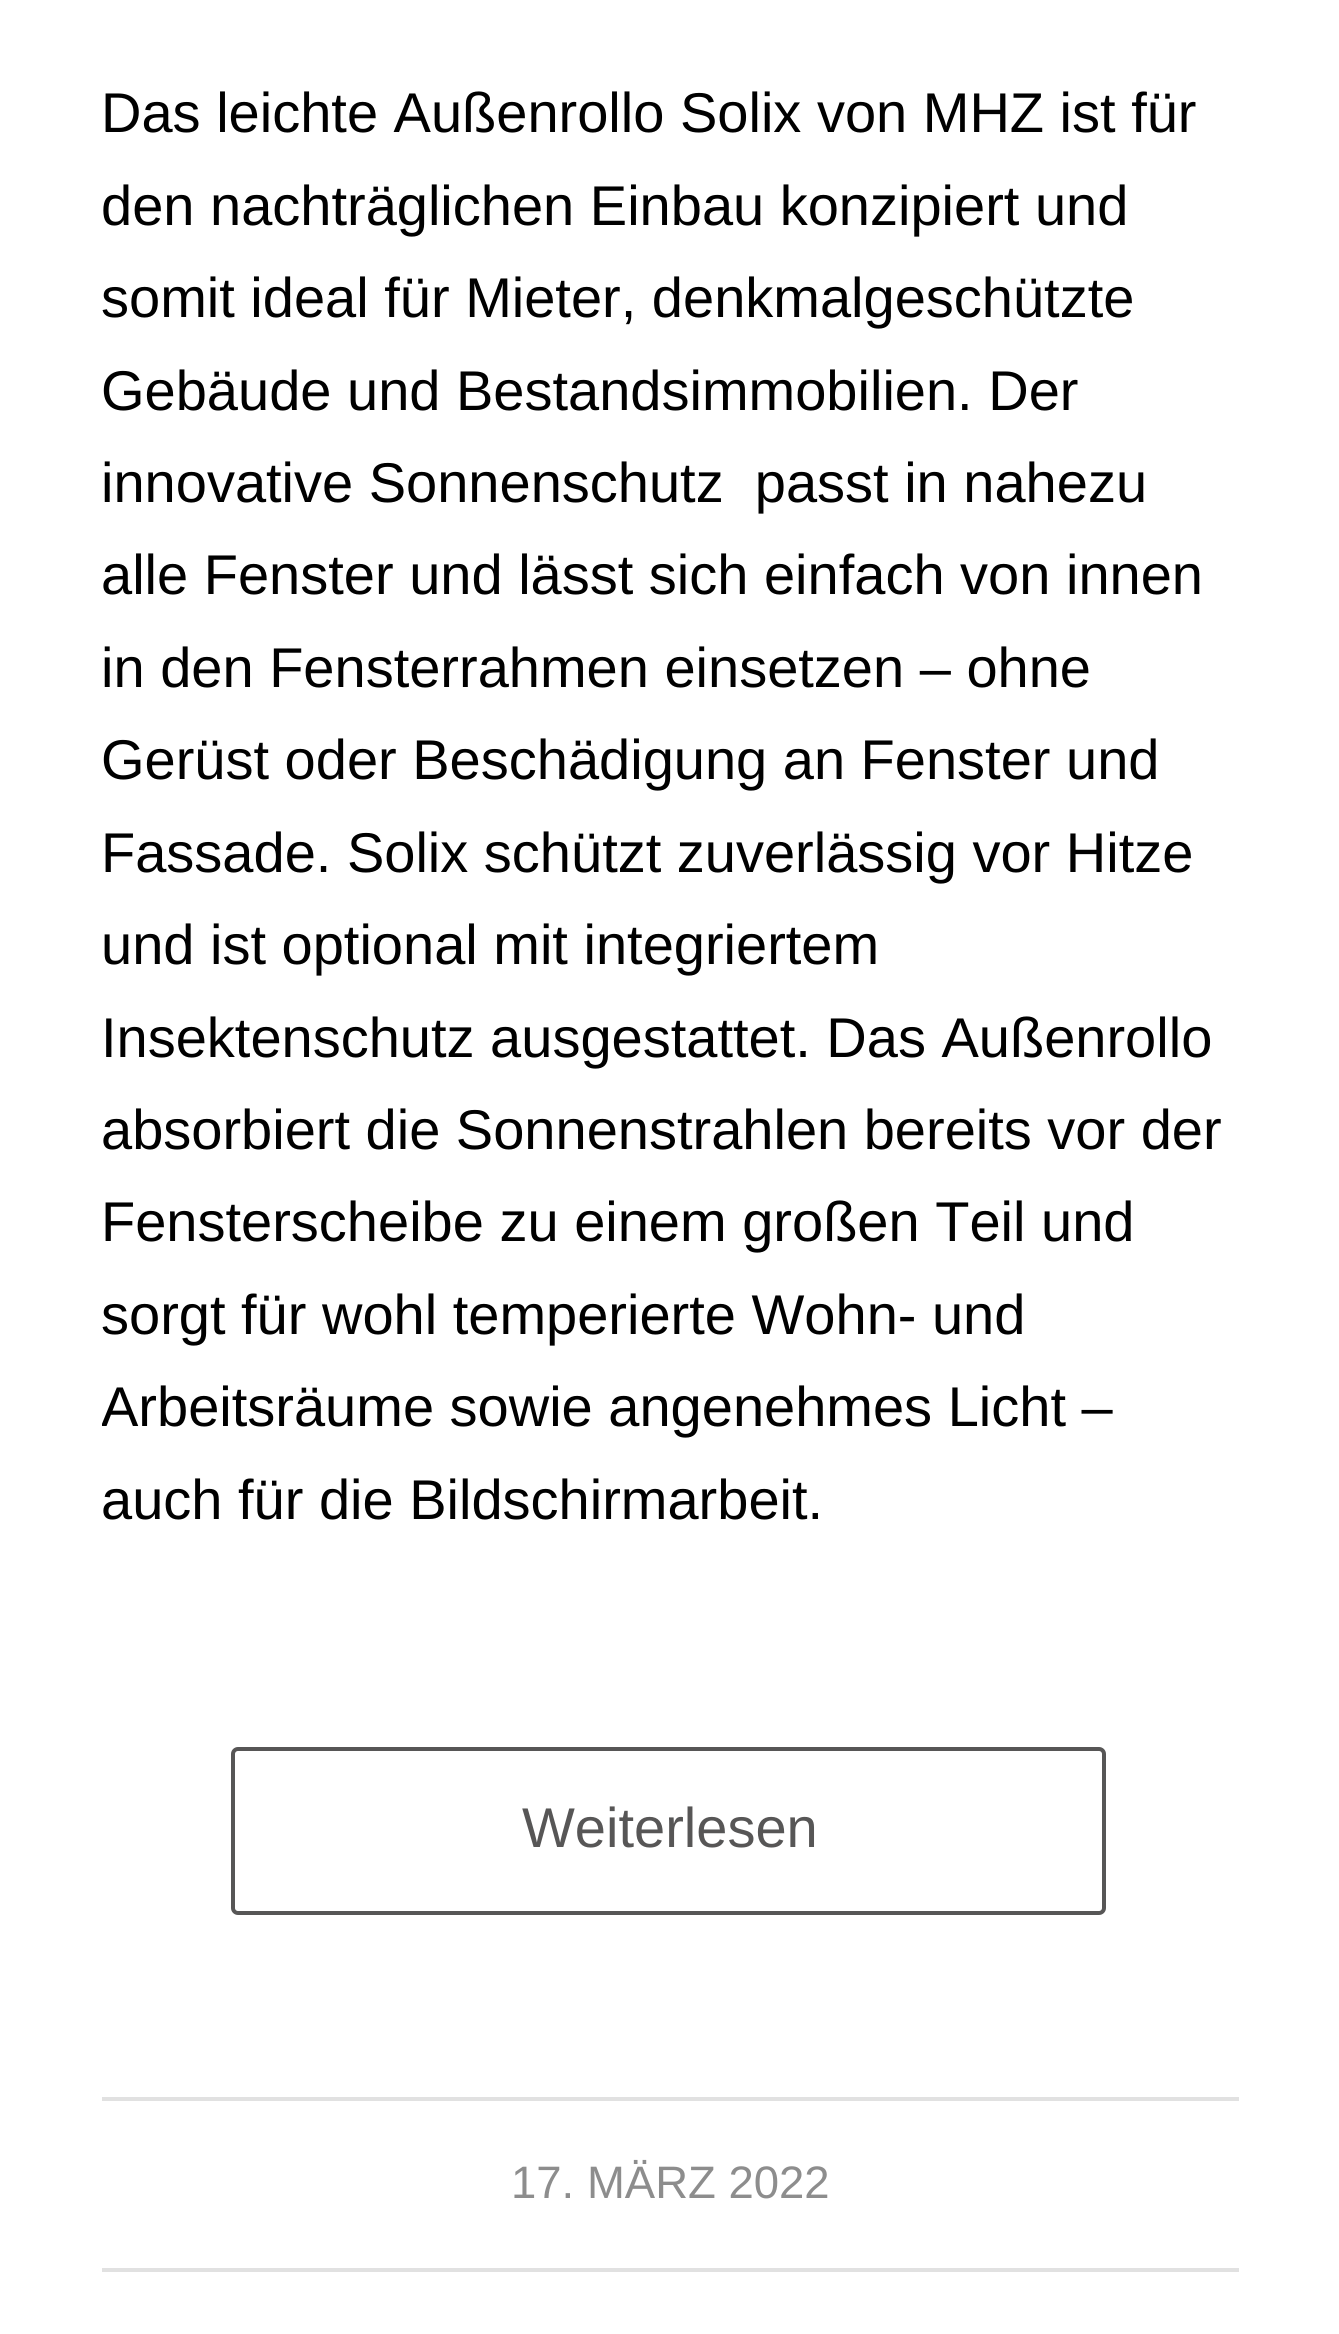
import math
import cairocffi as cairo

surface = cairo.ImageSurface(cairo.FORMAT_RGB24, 1339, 2334)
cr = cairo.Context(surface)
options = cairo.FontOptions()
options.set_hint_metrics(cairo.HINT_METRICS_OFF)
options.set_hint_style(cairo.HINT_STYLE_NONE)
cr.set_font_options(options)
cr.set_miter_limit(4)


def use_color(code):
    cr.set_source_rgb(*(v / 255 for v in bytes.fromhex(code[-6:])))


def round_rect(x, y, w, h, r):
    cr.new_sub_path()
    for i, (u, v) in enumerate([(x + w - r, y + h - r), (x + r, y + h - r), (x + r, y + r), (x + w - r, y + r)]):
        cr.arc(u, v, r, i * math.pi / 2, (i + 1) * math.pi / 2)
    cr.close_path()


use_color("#ffffff")
cr.paint()
cr.select_font_face("Liberation Sans")
cr.set_font_size(56)
use_color("#000000")
cr.move_to(101, 132)
cr.show_text("Das leichte Außenrollo Solix von MHZ ist für")
cr.move_to(101, 225)
cr.show_text("den nachträglichen Einbau konzipiert und")
cr.move_to(101, 317)
cr.show_text("somit ideal für Mieter, denkmalgeschützte")
cr.move_to(101, 410)
cr.show_text("Gebäude und Bestandsimmobilien. Der")
cr.move_to(101, 502)
cr.show_text("innovative Sonnenschutz  passt in nahezu")
cr.move_to(101, 594)
cr.show_text("alle Fenster und lässt sich einfach von innen")
cr.move_to(101, 687)
cr.show_text("in den Fensterrahmen einsetzen – ohne")
cr.move_to(101, 779)
cr.show_text("Gerüst oder Beschädigung an Fenster und")
cr.move_to(101, 872)
cr.show_text("Fassade. Solix schützt zuverlässig vor Hitze")
cr.move_to(101, 964)
cr.show_text("und ist optional mit integriertem")
cr.move_to(101, 1057)
cr.show_text("Insektenschutz ausgestattet. Das Außenrollo")
cr.move_to(101, 1149)
cr.show_text("absorbiert die Sonnenstrahlen bereits vor der")
cr.move_to(101, 1241)
cr.show_text("Fensterscheibe zu einem großen Teil und")
cr.move_to(101, 1334)
cr.show_text("sorgt für wohl temperierte Wohn- und")
cr.save()
cr.rectangle(102, 0, 1137, 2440)
cr.clip()
cr.move_to(101, 1426)
cr.show_text("Arbeitsräume sowie angenehmes Licht –")
cr.restore()
cr.move_to(101, 1519)
cr.show_text("auch für die Bildschirmarbeit.")
round_rect(233, 1749, 871, 164, 5)
use_color("#575656")
cr.set_line_width(4)
cr.stroke()
cr.move_to(522, 1847)
cr.show_text("Weiterlesen")
use_color("#e1e1e1")
cr.rectangle(102, 2097, 1137, 4)
cr.fill()
cr.rectangle(102, 2268, 1137, 4)
cr.fill()
cr.set_font_size(45.5)
use_color("#8d8d8d")
cr.move_to(511, 2198)
cr.show_text("17. MÄRZ 2022")
surface.write_to_png("result.png")
